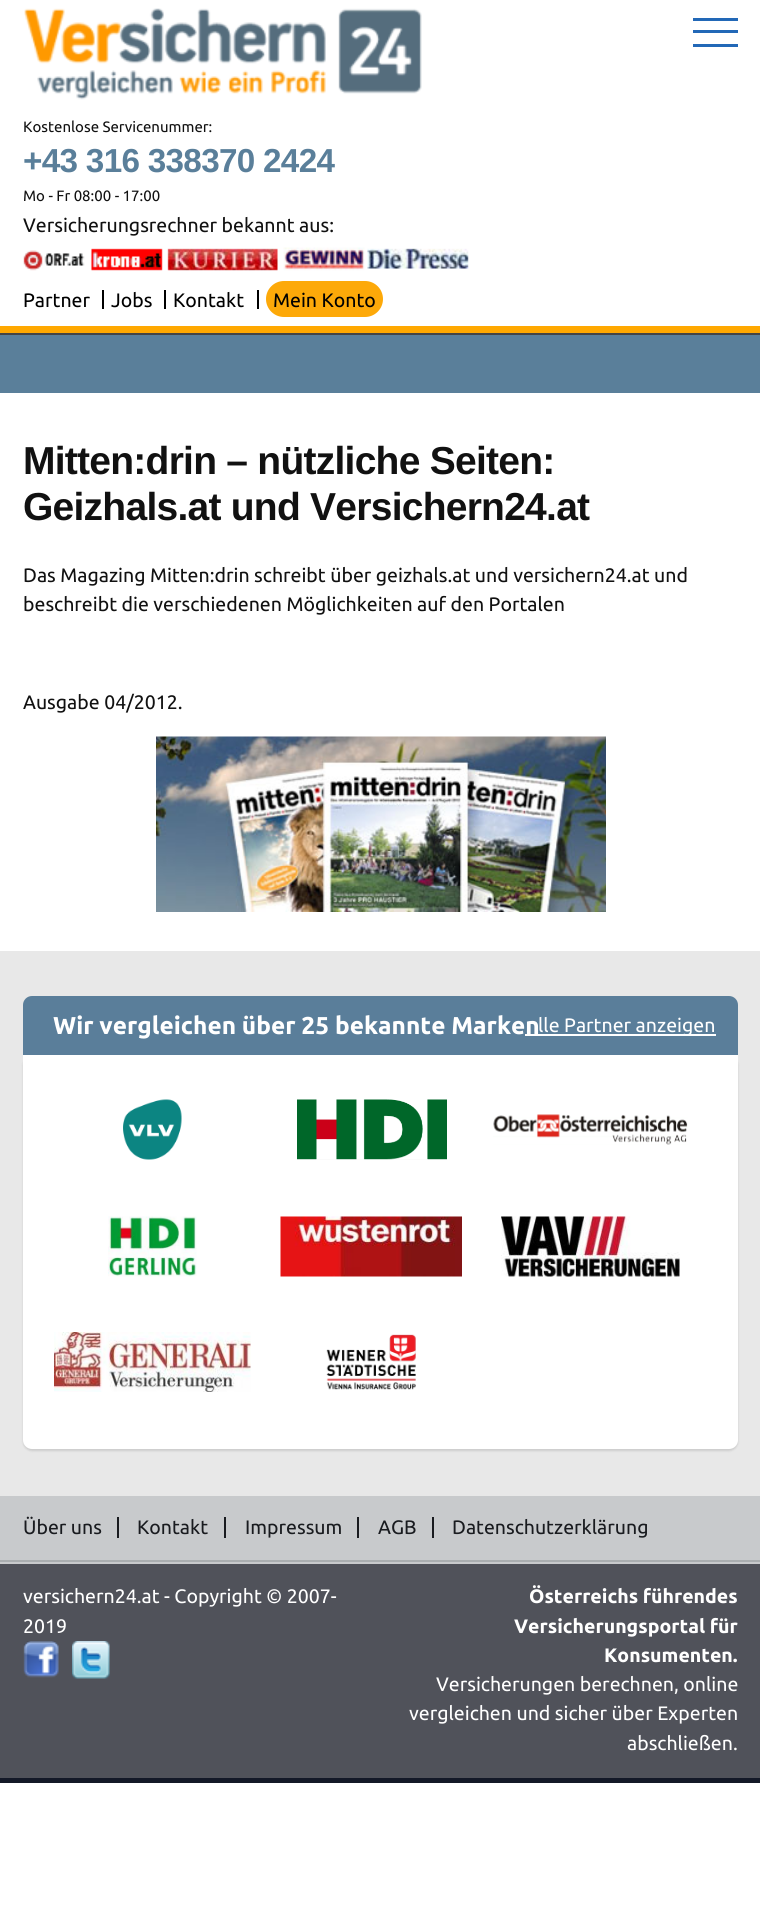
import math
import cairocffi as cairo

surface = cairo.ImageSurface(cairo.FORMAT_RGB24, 760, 1921)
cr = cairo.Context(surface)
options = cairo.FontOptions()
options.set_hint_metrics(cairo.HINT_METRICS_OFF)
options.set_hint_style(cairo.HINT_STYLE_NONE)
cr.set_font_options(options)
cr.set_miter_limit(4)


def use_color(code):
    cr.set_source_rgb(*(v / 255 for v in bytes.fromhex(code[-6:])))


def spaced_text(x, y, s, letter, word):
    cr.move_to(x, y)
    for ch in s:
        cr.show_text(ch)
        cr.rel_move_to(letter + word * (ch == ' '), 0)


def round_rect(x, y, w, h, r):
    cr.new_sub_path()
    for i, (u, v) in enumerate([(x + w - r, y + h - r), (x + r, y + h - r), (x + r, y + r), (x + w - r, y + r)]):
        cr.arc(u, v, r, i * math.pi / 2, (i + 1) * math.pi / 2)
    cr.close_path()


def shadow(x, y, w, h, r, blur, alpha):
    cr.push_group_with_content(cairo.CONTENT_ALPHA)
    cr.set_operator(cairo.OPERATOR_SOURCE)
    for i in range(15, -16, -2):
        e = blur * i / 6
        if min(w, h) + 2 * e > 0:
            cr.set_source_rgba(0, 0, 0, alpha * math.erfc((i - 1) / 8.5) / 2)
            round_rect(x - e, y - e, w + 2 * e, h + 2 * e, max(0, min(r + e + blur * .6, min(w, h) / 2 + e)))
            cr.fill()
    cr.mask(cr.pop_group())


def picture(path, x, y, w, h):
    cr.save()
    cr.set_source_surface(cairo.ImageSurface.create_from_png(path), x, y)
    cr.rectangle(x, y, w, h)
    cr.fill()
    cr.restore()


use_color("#ffffff")
cr.paint()
use_color("#2268b7")
cr.rectangle(693, 30, 45, 3)
cr.fill()
cr.rectangle(693, 18, 45, 3)
cr.fill()
cr.rectangle(693, 44, 45, 3)
cr.fill()
picture("img1.png", 24, 8, 398, 92)
cr.select_font_face("Ubuntu")
cr.set_font_size(15)
use_color("#111111")
cr.move_to(23, 132)
cr.show_text("Kostenlose Servicenummer:")
cr.select_font_face("Liberation Sans", cairo.FONT_SLANT_NORMAL, cairo.FONT_WEIGHT_BOLD)
cr.set_font_size(33.25)
use_color("#5a7f9a")
spaced_text(23, 172, "+43 316 338370 2424", -0.7, 0)
cr.select_font_face("Ubuntu")
cr.set_font_size(15)
use_color("#111111")
cr.move_to(23, 201)
cr.show_text("Mo - Fr 08:00 - 17:00")
cr.set_font_size(19.5)
cr.move_to(23, 232)
cr.show_text("Versicherungsrechner bekannt aus:")
picture("img2.png", 23, 247, 446, 24)
use_color("#000000")
cr.move_to(23, 307)
cr.show_text("Partner")
cr.rectangle(102, 290, 2, 19)
cr.fill()
cr.move_to(111, 307)
cr.show_text("Jobs")
cr.rectangle(164, 290, 2, 19)
cr.fill()
cr.move_to(173, 307)
cr.show_text("Kontakt")
cr.rectangle(257, 290, 2, 19)
cr.fill()
use_color("#fda909")
round_rect(266, 281, 117, 36, 18)
cr.fill()
use_color("#000000")
cr.move_to(273, 307)
cr.show_text("Mein Konto")
use_color("#ffa800")
cr.rectangle(0, 326, 760, 7)
cr.fill()
use_color("#5a7f9a")
cr.rectangle(0, 335, 760, 58)
cr.fill()
use_color("#444444")
cr.rectangle(0, 333, 760, 2)
cr.fill()
cr.select_font_face("Liberation Sans", cairo.FONT_SLANT_NORMAL, cairo.FONT_WEIGHT_BOLD)
cr.set_font_size(39)
use_color("#111111")
spaced_text(23, 474, "Mitten:drin – nützliche Seiten:", -0.75, 0)
spaced_text(23, 520, "Geizhals.at und Versichern24.at", -0.75, 0)
cr.select_font_face("Ubuntu")
cr.set_font_size(19.5)
cr.move_to(23, 582)
cr.show_text("Das Magazing Mitten:drin schreibt über geizhals.at und versichern24.at und")
cr.move_to(23, 611)
cr.show_text("beschreibt die verschiedenen Möglichkeiten auf den Portalen")
cr.move_to(23, 709)
cr.show_text("Ausgabe 04/2012.")
picture("img3.png", 156, 736, 450, 176)
use_color("#e8e8e8")
cr.rectangle(0, 951, 760, 545)
cr.fill()
use_color("#000000")
shadow(23, 1056, 715, 395, 9, 1, 0.12)
use_color("#5a7e9a")
cr.new_path()
cr.move_to(32, 996)
cr.line_to(729, 996)
cr.curve_to(734, 996, 738, 1000, 738, 1005)
cr.line_to(738, 1055)
cr.line_to(23, 1055)
cr.line_to(23, 1005)
cr.curve_to(23, 1000, 27, 996, 32, 996)
cr.close_path()
cr.fill()
cr.select_font_face("Ubuntu", cairo.FONT_SLANT_NORMAL, cairo.FONT_WEIGHT_BOLD)
cr.set_font_size(24.4)
use_color("#ffffff")
cr.move_to(53, 1034)
cr.show_text("Wir vergleichen über 25 bekannte Marken")
cr.rectangle(525, 1034, 191, 2)
cr.fill()
cr.select_font_face("Ubuntu")
cr.set_font_size(19.5)
cr.move_to(538, 1032)
cr.show_text("lle Partner anzeigen")
cr.new_path()
cr.move_to(23, 1055)
cr.line_to(738, 1055)
cr.line_to(738, 1440)
cr.curve_to(738, 1445, 734, 1449, 729, 1449)
cr.line_to(32, 1449)
cr.curve_to(27, 1449, 23, 1445, 23, 1440)
cr.close_path()
cr.fill()
picture("img4.png", 123, 1099, 59, 61)
picture("img5.png", 297, 1099, 150, 61)
picture("img6.png", 493, 1114, 195, 31)
picture("img7.png", 108, 1216, 89, 61)
picture("img8.png", 280, 1216, 182, 61)
picture("img9.png", 501, 1216, 179, 61)
picture("img10.png", 54, 1332, 197, 60)
picture("img11.png", 326, 1334, 90, 56)
use_color("#c8cacc")
cr.rectangle(0, 1496, 760, 64)
cr.fill()
use_color("#aaaeb0")
cr.rectangle(0, 1560, 760, 2)
cr.fill()
use_color("#191b1f")
cr.move_to(23, 1534)
cr.show_text("Über uns")
cr.rectangle(117, 1517, 2, 21)
cr.fill()
cr.move_to(137, 1534)
cr.show_text("Kontakt")
cr.rectangle(224, 1517, 2, 21)
cr.fill()
cr.move_to(245, 1534)
cr.show_text("Impressum")
cr.rectangle(357, 1517, 2, 21)
cr.fill()
cr.move_to(378, 1534)
cr.show_text("AGB")
cr.rectangle(432, 1517, 2, 21)
cr.fill()
cr.move_to(452, 1534)
cr.show_text("Datenschutzerklärung")
use_color("#50525a")
cr.rectangle(0, 1564, 760, 214)
cr.fill()
use_color("#c8cacc")
cr.rectangle(0, 1562, 760, 2)
cr.fill()
use_color("#141928")
cr.rectangle(0, 1778, 760, 5)
cr.fill()
use_color("#ffffff")
cr.move_to(23, 1603)
cr.show_text("versichern24.at - Copyright © 2007-")
cr.move_to(23, 1633)
cr.show_text("2019")
picture("img12.png", 23, 1641, 36, 37)
picture("img13.png", 72, 1641, 38, 38)
cr.select_font_face("Ubuntu", cairo.FONT_SLANT_NORMAL, cairo.FONT_WEIGHT_BOLD)
cr.move_to(529, 1603)
cr.show_text("Österreichs führendes")
cr.move_to(514, 1633)
cr.show_text("Versicherungsportal für")
cr.move_to(604, 1662)
cr.show_text("Konsumenten.")
cr.select_font_face("Ubuntu")
cr.move_to(436, 1691)
cr.show_text("Versicherungen berechnen, online")
cr.move_to(409, 1720)
cr.show_text("vergleichen und sicher über Experten")
cr.move_to(627, 1750)
cr.show_text("abschließen.")
surface.write_to_png("result.png")
